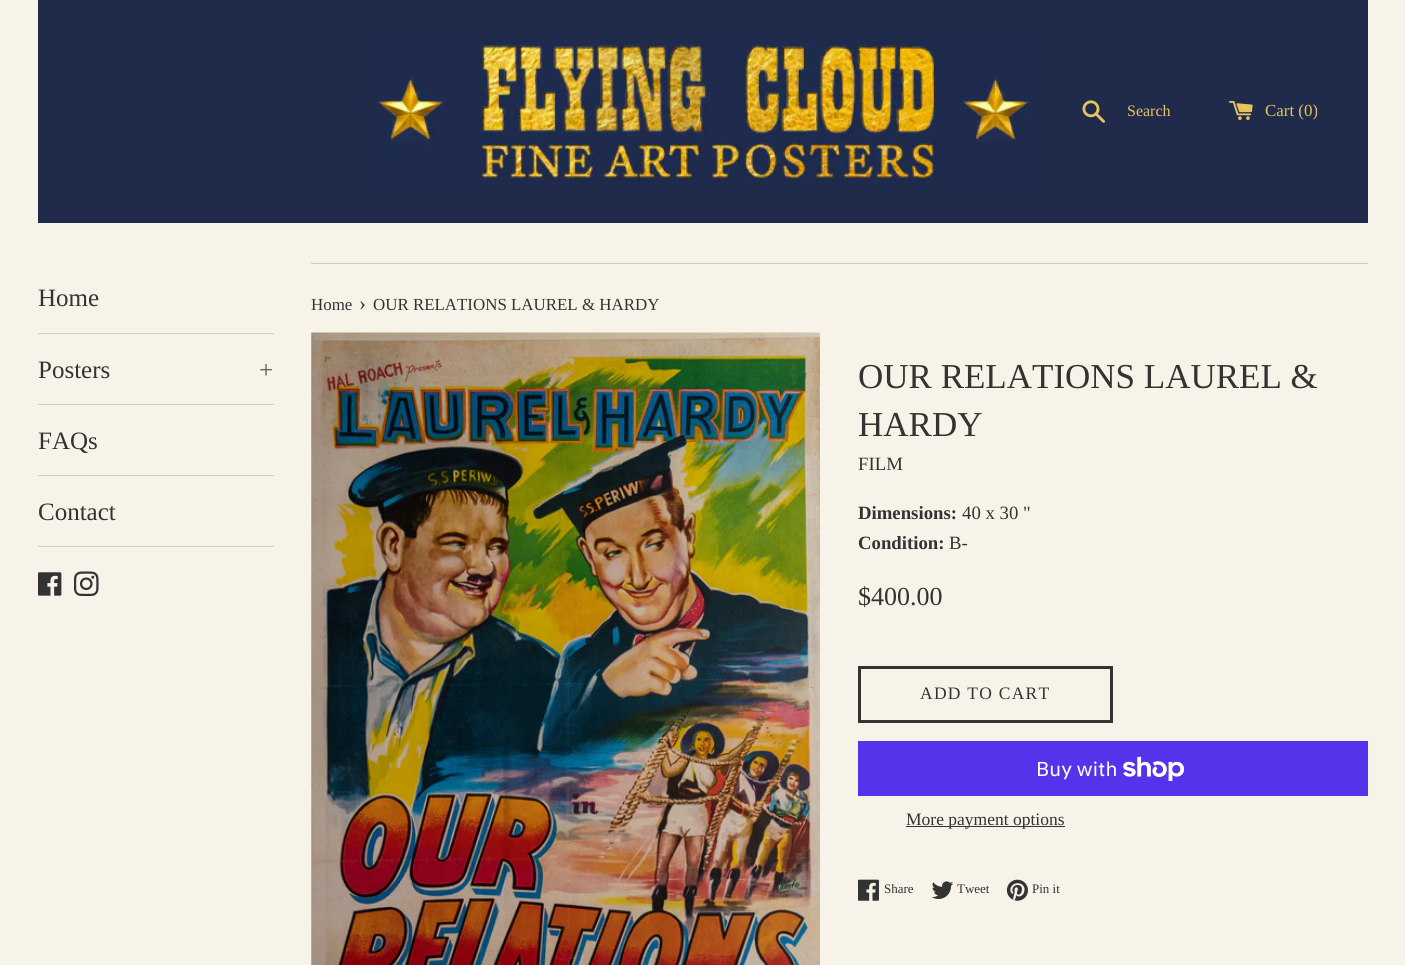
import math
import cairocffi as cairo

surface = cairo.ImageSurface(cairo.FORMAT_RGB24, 1405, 965)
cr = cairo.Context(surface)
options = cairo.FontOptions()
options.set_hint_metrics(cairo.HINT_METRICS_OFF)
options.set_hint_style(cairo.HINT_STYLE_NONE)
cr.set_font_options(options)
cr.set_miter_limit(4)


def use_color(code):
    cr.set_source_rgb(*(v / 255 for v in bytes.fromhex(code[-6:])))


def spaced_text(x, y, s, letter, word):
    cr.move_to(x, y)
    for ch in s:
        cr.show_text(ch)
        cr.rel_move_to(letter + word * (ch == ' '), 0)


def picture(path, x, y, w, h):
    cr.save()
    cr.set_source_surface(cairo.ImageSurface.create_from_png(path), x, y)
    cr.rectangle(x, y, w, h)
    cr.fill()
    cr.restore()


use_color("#f7f3e8")
cr.paint()
use_color("#202b4b")
cr.rectangle(38, 0, 1330, 223)
cr.fill()
picture("img1.png", 375, 40, 656, 143)
picture("img2.png", 1082, 100, 23, 23)
cr.select_font_face("Liberation Serif")
cr.set_font_size(16)
use_color("#e5c45d")
cr.move_to(1127, 116)
cr.show_text("Search")
picture("img3.png", 1229, 101, 24, 19)
cr.set_font_size(16.9)
cr.move_to(1265, 116)
cr.show_text("Cart (0)")
use_color("#cccccc")
cr.rectangle(38, 333, 236, 1)
cr.fill()
cr.set_font_size(25)
use_color("#333333")
cr.move_to(38, 306)
cr.show_text("Home")
use_color("#cccccc")
cr.rectangle(38, 404, 236, 1)
cr.fill()
use_color("#333333")
cr.move_to(38, 378)
cr.show_text("Posters")
use_color("#5a5957")
cr.move_to(259, 378)
cr.show_text("+")
use_color("#cccccc")
cr.rectangle(38, 475, 236, 1)
cr.fill()
use_color("#333333")
cr.move_to(38, 449)
cr.show_text("FAQs")
use_color("#cccccc")
cr.rectangle(38, 546, 236, 1)
cr.fill()
use_color("#333333")
cr.move_to(38, 520)
cr.show_text("Contact")
picture("img4.png", 38, 572, 24, 24)
picture("img5.png", 74, 571, 25, 25)
use_color("#cccccc")
cr.rectangle(311, 263, 1057, 1)
cr.fill()
cr.set_font_size(16.9)
use_color("#333333")
cr.move_to(311, 310)
cr.show_text("Home")
cr.set_font_size(21)
cr.move_to(359, 310)
cr.show_text("›")
cr.set_font_size(16.9)
cr.move_to(373, 310)
cr.show_text("OUR RELATIONS LAUREL & HARDY")
picture("img6.png", 311, 332, 509, 633)
cr.set_font_size(35)
cr.move_to(858, 388)
cr.show_text("OUR RELATIONS LAUREL &")
cr.move_to(858, 436)
cr.show_text("HARDY")
cr.set_font_size(18.75)
cr.move_to(858, 470)
cr.show_text("FILM")
cr.select_font_face("Liberation Serif", cairo.FONT_SLANT_NORMAL, cairo.FONT_WEIGHT_BOLD)
cr.move_to(858, 519)
cr.show_text("Dimensions:")
cr.select_font_face("Liberation Serif")
cr.move_to(962, 519)
cr.show_text("40 x 30 \"")
cr.select_font_face("Liberation Serif", cairo.FONT_SLANT_NORMAL, cairo.FONT_WEIGHT_BOLD)
cr.move_to(858, 549)
cr.show_text("Condition:")
cr.select_font_face("Liberation Serif")
cr.move_to(949, 549)
cr.show_text("B-")
cr.set_font_size(26)
cr.move_to(858, 605)
cr.show_text("$400.00")
cr.rectangle(859.5, 667.5, 252, 54)
cr.set_line_width(3)
cr.stroke()
cr.set_font_size(17.5)
spaced_text(920, 699, "ADD TO CART", 1.25, 0)
use_color("#5433eb")
cr.rectangle(858, 741, 510, 55)
cr.fill()
cr.select_font_face("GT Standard")
cr.set_font_size(20)
use_color("#ffffff")
cr.move_to(1036, 776)
cr.show_text("Buy with")
picture("img7.png", 1123, 756, 62, 25)
use_color("#333333")
cr.rectangle(906, 826, 159, 1)
cr.fill()
cr.select_font_face("Liberation Serif")
cr.set_font_size(17.5)
cr.move_to(906, 825)
cr.show_text("More payment options")
picture("img8.png", 858, 879, 21, 22)
cr.set_font_size(13)
cr.move_to(884, 893)
cr.show_text("Share")
picture("img9.png", 931, 881, 23, 18)
cr.move_to(957, 893)
cr.show_text("Tweet")
picture("img10.png", 1006, 879, 22, 22)
cr.move_to(1032, 893)
cr.show_text("Pin it")
surface.write_to_png("result.png")
